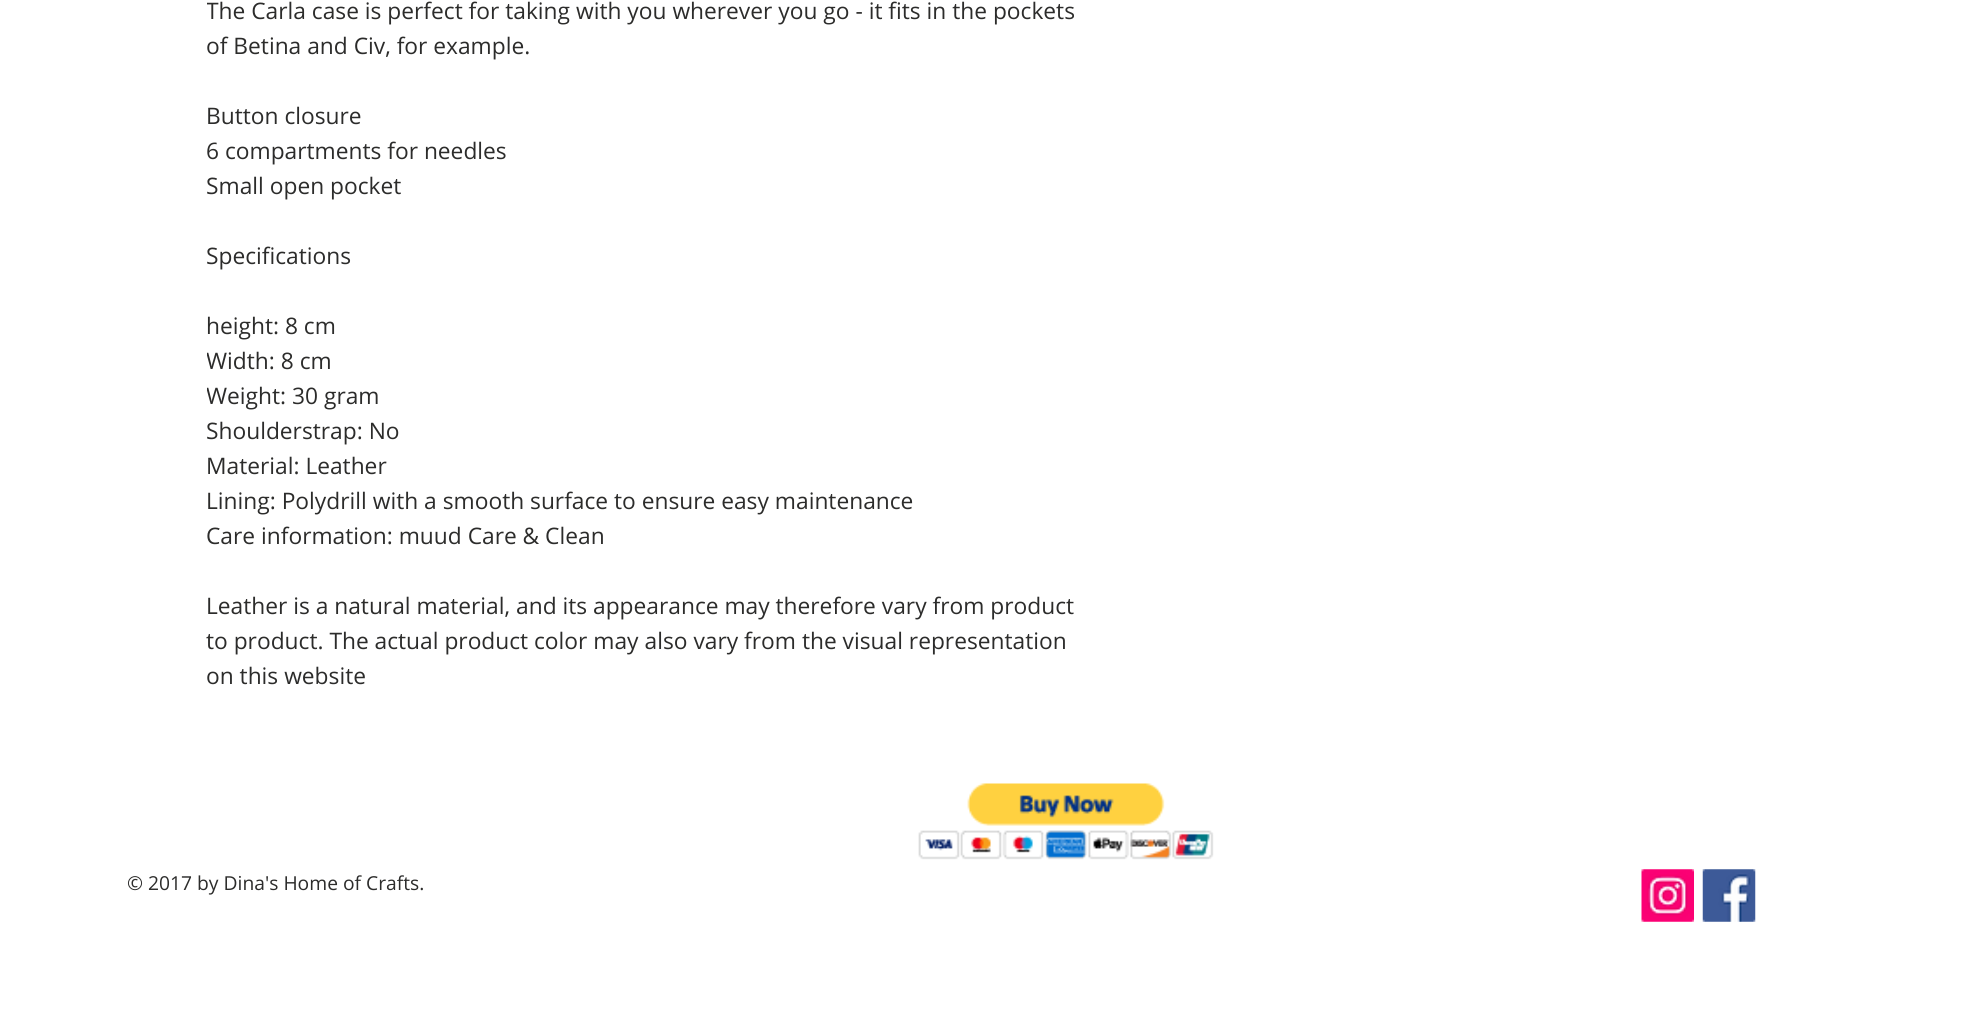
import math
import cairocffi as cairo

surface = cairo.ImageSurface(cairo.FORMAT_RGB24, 1968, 1017)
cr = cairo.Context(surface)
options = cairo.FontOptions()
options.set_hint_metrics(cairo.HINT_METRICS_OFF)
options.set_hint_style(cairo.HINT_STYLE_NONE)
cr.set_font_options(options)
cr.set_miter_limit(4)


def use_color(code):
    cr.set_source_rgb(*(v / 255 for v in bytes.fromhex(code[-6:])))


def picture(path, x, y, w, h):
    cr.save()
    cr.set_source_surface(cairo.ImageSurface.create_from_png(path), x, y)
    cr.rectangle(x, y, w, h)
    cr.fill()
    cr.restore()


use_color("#ffffff")
cr.paint()
cr.save()
cr.rectangle(207, 0, 875, 693)
cr.clip()
cr.select_font_face("Open Sans")
cr.set_font_size(22.75)
use_color("#2c2c2b")
cr.move_to(206, 19)
cr.show_text("The Carla case is perfect for taking with you wherever you go - it fits in the pockets")
cr.restore()
cr.select_font_face("Open Sans")
cr.set_font_size(22.75)
use_color("#2c2c2b")
cr.move_to(206, 54)
cr.show_text("of Betina and Civ, for example.")
cr.move_to(206, 124)
cr.show_text("Button closure")
cr.move_to(206, 159)
cr.show_text("6 compartments for needles")
cr.save()
cr.rectangle(207, 0, 875, 693)
cr.clip()
cr.move_to(206, 194)
cr.show_text("Small open pocket")
cr.move_to(206, 264)
cr.show_text("Specifications")
cr.restore()
cr.move_to(206, 334)
cr.show_text("height: 8 cm")
cr.save()
cr.rectangle(207, 0, 875, 693)
cr.clip()
cr.move_to(206, 369)
cr.show_text("Width: 8 cm")
cr.move_to(206, 404)
cr.show_text("Weight: 30 gram")
cr.move_to(206, 439)
cr.show_text("Shoulderstrap: No")
cr.restore()
cr.move_to(206, 474)
cr.show_text("Material: Leather")
cr.move_to(206, 509)
cr.show_text("Lining: Polydrill with a smooth surface to ensure easy maintenance")
cr.move_to(206, 544)
cr.show_text("Care information: muud Care & Clean")
cr.move_to(206, 614)
cr.show_text("Leather is a natural material, and its appearance may therefore vary from product")
cr.move_to(206, 649)
cr.show_text("to product. The actual product color may also vary from the visual representation")
cr.move_to(206, 684)
cr.show_text("on this website")
picture("img1.png", 918, 783, 296, 77)
cr.set_font_size(19.25)
cr.move_to(127, 890)
cr.show_text("© 2017 by Dina's Home of Crafts.")
picture("img2.png", 1641, 869, 53, 53)
picture("img3.png", 1702, 869, 54, 53)
surface.write_to_png("result.png")
